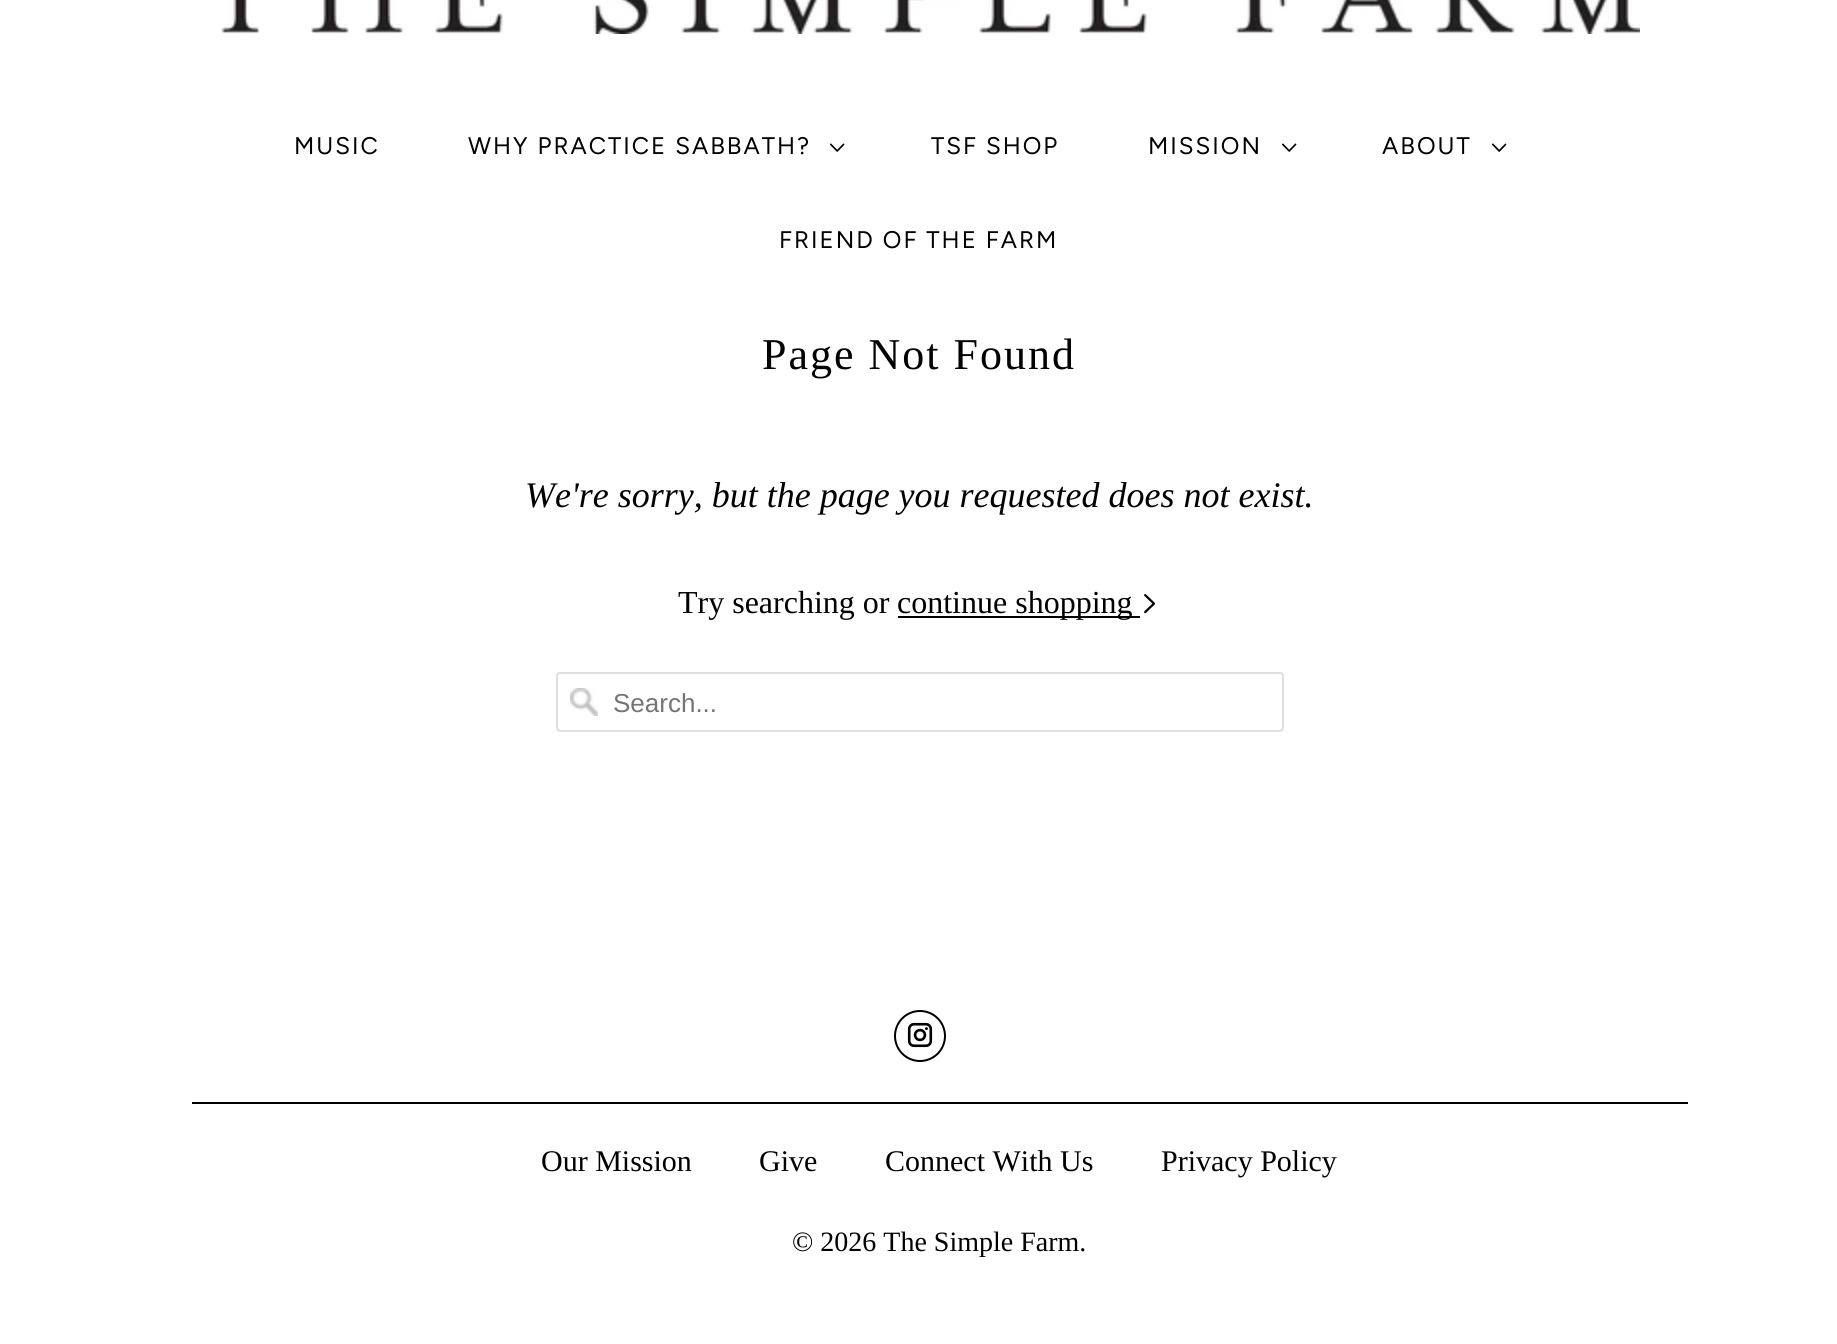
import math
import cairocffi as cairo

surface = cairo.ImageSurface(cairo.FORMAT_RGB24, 1837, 1344)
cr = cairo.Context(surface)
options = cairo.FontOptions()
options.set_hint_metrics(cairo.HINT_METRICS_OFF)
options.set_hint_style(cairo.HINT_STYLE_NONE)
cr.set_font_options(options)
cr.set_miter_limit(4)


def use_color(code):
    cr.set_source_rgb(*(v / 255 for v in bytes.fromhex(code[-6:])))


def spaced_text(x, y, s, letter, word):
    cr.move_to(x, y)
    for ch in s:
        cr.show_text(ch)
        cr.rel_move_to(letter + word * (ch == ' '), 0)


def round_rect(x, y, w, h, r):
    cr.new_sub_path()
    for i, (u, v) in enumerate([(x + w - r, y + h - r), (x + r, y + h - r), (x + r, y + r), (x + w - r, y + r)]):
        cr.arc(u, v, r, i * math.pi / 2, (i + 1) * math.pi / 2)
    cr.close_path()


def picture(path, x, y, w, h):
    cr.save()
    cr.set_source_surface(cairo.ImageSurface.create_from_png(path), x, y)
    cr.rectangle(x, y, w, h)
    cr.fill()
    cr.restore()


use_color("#ffffff")
cr.paint()
picture("img1.png", 221, 0, 1419, 34)
cr.select_font_face("Figtree")
cr.set_font_size(24)
use_color("#000000")
spaced_text(294, 154, "MUSIC", 2, 0)
spaced_text(468, 154, "WHY PRACTICE SABBATH?", 2, 0)
picture("img2.png", 830, 143, 15, 9)
spaced_text(931, 154, "TSF SHOP", 2, 0)
spaced_text(1148, 154, "MISSION", 2, 0)
picture("img2.png", 1282, 143, 15, 9)
spaced_text(1382, 154, "ABOUT", 2, 0)
picture("img2.png", 1492, 143, 15, 9)
spaced_text(779, 248, "FRIEND OF THE FARM", 2, 0)
cr.select_font_face("Liberation Serif")
cr.set_font_size(44)
spaced_text(762, 369, "Page Not Found", 2, 0)
cr.select_font_face("Liberation Serif", cairo.FONT_SLANT_ITALIC)
cr.set_font_size(36)
cr.move_to(525, 507)
cr.show_text("We're sorry, but the page you requested does not exist.")
cr.select_font_face("Liberation Serif")
cr.set_font_size(32)
cr.move_to(678, 613)
cr.show_text("Try searching or")
cr.rectangle(898, 616, 242, 2)
cr.fill()
cr.move_to(897, 613)
cr.show_text("continue shopping")
picture("img3.png", 1144, 594, 12, 20)
picture("img4.png", 570, 688, 28, 28)
round_rect(557, 673, 726, 58, 3)
use_color("#dfdfdf")
cr.stroke()
cr.select_font_face("Liberation Sans")
cr.set_font_size(26)
use_color("#757575")
cr.move_to(613, 712)
cr.show_text("Search...")
cr.new_path()
cr.arc(920, 1036, 25, 0, 2 * math.pi)
use_color("#000000")
cr.stroke()
picture("img5.png", 907, 1022, 26, 26)
cr.rectangle(192, 1102, 1496, 2)
cr.fill()
cr.select_font_face("Liberation Serif")
cr.set_font_size(30)
cr.move_to(541, 1171)
cr.show_text("Our Mission")
cr.move_to(759, 1171)
cr.show_text("Give")
cr.move_to(885, 1171)
cr.show_text("Connect With Us")
cr.move_to(1161, 1171)
cr.show_text("Privacy Policy")
cr.set_font_size(28)
cr.move_to(792, 1251)
cr.show_text("© 2026 The Simple Farm.")
surface.write_to_png("result.png")
